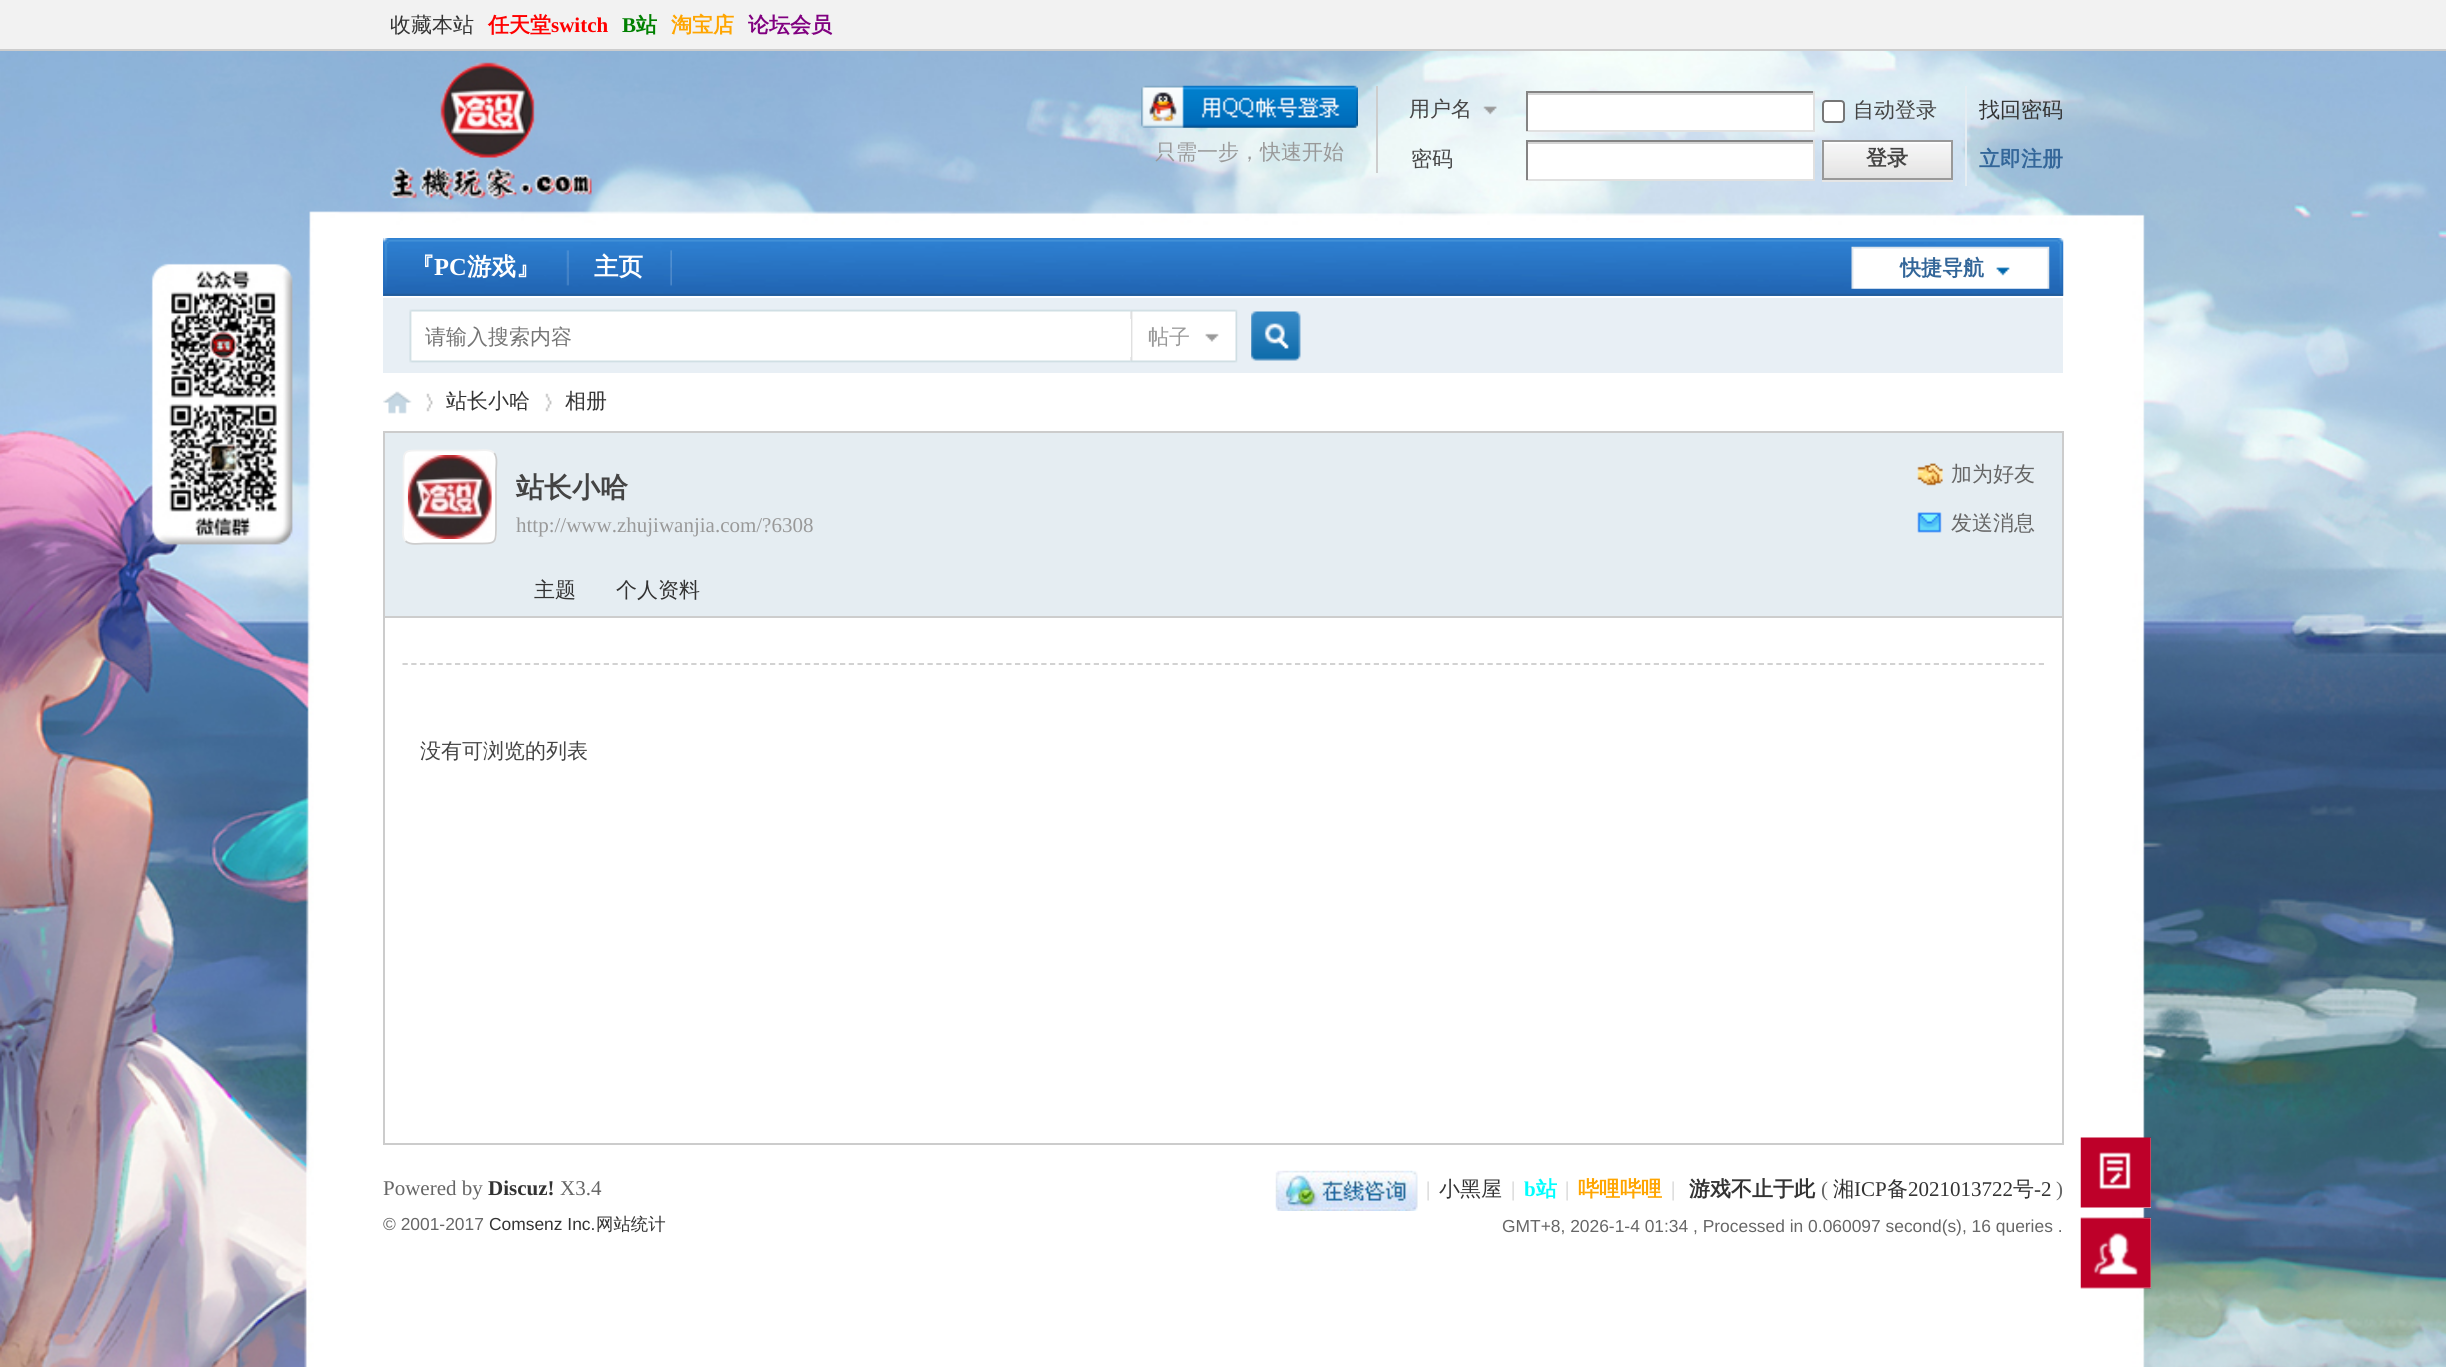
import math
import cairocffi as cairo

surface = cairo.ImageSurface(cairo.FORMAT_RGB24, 2446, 1367)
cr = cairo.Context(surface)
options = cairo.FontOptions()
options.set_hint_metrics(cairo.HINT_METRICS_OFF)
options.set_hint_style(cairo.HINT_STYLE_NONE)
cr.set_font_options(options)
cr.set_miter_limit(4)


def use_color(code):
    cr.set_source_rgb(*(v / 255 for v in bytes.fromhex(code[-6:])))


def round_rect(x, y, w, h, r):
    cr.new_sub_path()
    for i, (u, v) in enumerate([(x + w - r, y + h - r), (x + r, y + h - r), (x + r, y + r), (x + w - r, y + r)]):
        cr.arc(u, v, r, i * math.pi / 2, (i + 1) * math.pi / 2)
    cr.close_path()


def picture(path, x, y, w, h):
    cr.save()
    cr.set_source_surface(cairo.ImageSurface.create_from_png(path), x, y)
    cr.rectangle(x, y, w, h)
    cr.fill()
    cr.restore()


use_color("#ffffff")
cr.paint()
picture("img1.png", 0, 51, 2446, 1316)
use_color("#f2f2f2")
cr.rectangle(0, 0, 2446, 49)
cr.fill()
use_color("#cdcdcd")
cr.rectangle(0, 49, 2446, 2)
cr.fill()
cr.select_font_face("WenQuanYi Zen Hei Medium")
cr.set_font_size(21)
use_color("#333333")
cr.move_to(390, 32)
cr.show_text("收藏本站")
cr.select_font_face("WenQuanYi Zen Hei", cairo.FONT_SLANT_NORMAL, cairo.FONT_WEIGHT_BOLD)
use_color("#ff0000")
cr.move_to(488, 32)
cr.show_text("任天堂")
cr.select_font_face("Liberation Serif", cairo.FONT_SLANT_NORMAL, cairo.FONT_WEIGHT_BOLD)
cr.move_to(551, 32)
cr.show_text("switch")
use_color("#008000")
cr.move_to(622, 32)
cr.show_text("B")
cr.select_font_face("WenQuanYi Zen Hei", cairo.FONT_SLANT_NORMAL, cairo.FONT_WEIGHT_BOLD)
cr.move_to(636, 32)
cr.show_text("站")
use_color("#ffa500")
cr.move_to(671, 32)
cr.show_text("淘宝店")
use_color("#800080")
cr.move_to(748, 32)
cr.show_text("论坛会员")
use_color("#cdcdcd")
cr.rectangle(1376, 86, 2, 87)
cr.fill()
picture("img2.png", 1141, 85, 217, 43)
cr.select_font_face("WenQuanYi Zen Hei Medium")
use_color("#999999")
cr.move_to(1155, 159)
cr.show_text("只需一步，快速开始")
picture("img3.png", 1483, 106, 14, 9)
use_color("#444444")
cr.move_to(1409, 116)
cr.show_text("用户名")
use_color("#ffffff")
cr.rectangle(1528, 95, 285, 35)
cr.fill()
use_color("#d4d4d4")
cr.rectangle(1526, 93, 289, 2)
cr.fill()
use_color("#848484")
cr.rectangle(1526, 91, 289, 2)
cr.fill()
use_color("#e0e0e0")
cr.rectangle(1813, 91, 2, 40)
cr.fill()
cr.rectangle(1526, 130, 289, 2)
cr.fill()
use_color("#848484")
cr.rectangle(1526, 91, 2, 40)
cr.fill()
use_color("#ffffff")
round_rect(1823, 101, 21, 21, 3)
cr.fill_preserve()
use_color("#767676")
cr.stroke()
use_color("#444444")
cr.move_to(1853, 117)
cr.show_text("自动登录")
use_color("#333333")
cr.move_to(1979, 117)
cr.show_text("找回密码")
use_color("#444444")
cr.move_to(1411, 166)
cr.show_text("密码")
use_color("#ffffff")
cr.rectangle(1528, 144, 285, 35)
cr.fill()
use_color("#d4d4d4")
cr.rectangle(1526, 142, 289, 2)
cr.fill()
use_color("#848484")
cr.rectangle(1526, 140, 289, 2)
cr.fill()
use_color("#e0e0e0")
cr.rectangle(1813, 140, 2, 40)
cr.fill()
cr.rectangle(1526, 179, 289, 2)
cr.fill()
use_color("#848484")
cr.rectangle(1526, 140, 2, 40)
cr.fill()
use_color("#e5edf2")
cr.rectangle(1965, 86, 2, 100)
cr.fill()
use_color("#e5e5e5")
cr.rectangle(1822, 180, 131, 2)
cr.fill()
picture("img4.png", 1821, 141, 130, 39)
cr.rectangle(1823, 141, 129, 38)
use_color("#999999")
cr.stroke()
cr.select_font_face("WenQuanYi Zen Hei", cairo.FONT_SLANT_NORMAL, cairo.FONT_WEIGHT_BOLD)
use_color("#444444")
cr.move_to(1866, 165)
cr.show_text("登录")
use_color("#336699")
cr.move_to(1979, 166)
cr.show_text("立即注册")
use_color("#2b7acd")
cr.rectangle(383, 238, 1680, 58)
cr.fill()
picture("img5.png", 383, 238, 1681, 58)
picture("img6.png", 566, 250, 3, 36)
cr.set_font_size(24.5)
use_color("#ffffff")
cr.move_to(410, 275)
cr.show_text("『")
cr.select_font_face("Liberation Serif", cairo.FONT_SLANT_NORMAL, cairo.FONT_WEIGHT_BOLD)
cr.move_to(434, 275)
cr.show_text("PC")
cr.select_font_face("WenQuanYi Zen Hei", cairo.FONT_SLANT_NORMAL, cairo.FONT_WEIGHT_BOLD)
cr.move_to(467, 275)
cr.show_text("游戏』")
picture("img7.png", 670, 250, 2, 36)
cr.move_to(594, 275)
cr.show_text("主页")
picture("img8.png", 1851, 246, 199, 43)
cr.set_font_size(21)
use_color("#336699")
cr.move_to(1900, 275)
cr.show_text("快捷导航")
use_color("#e8eff5")
cr.rectangle(383, 298, 1680, 75)
cr.fill()
picture("img9.png", 384, 297, 36, 66)
picture("img10.png", 420, 309, 711, 54)
picture("img11.png", 1130, 309, 108, 54)
use_color("#ffffff")
cr.rectangle(1130, 319, 1, 38)
cr.fill()
cr.select_font_face("WenQuanYi Zen Hei Medium")
use_color("#757575")
cr.move_to(425, 344)
cr.show_text("请输入搜索内容")
use_color("#999999")
cr.move_to(1148, 344)
cr.show_text("帖子")
picture("img12.png", 1251, 311, 50, 50)
picture("img13.png", 383, 391, 29, 23)
picture("img14.png", 426, 393, 7, 19)
use_color("#333333")
cr.move_to(446, 408)
cr.show_text("站长小哈")
picture("img15.png", 545, 393, 7, 19)
cr.move_to(565, 408)
cr.show_text("相册")
use_color("#e5edf2")
cr.rectangle(385, 433, 1677, 183)
cr.fill()
use_color("#cccccc")
cr.rectangle(383, 431, 1680, 2)
cr.fill()
cr.rectangle(2062, 431, 2, 714)
cr.fill()
cr.rectangle(383, 431, 2, 187)
cr.fill()
use_color("#ffffff")
round_rect(403, 450, 94, 94, 9)
cr.fill()
cr.new_path()
cr.move_to(494, 453)
cr.curve_to(498, 457, 496, 467.5, 496, 471.5)
cr.line_to(496, 522.5)
cr.curve_to(496, 544.5, 497, 543.5, 475.5, 543.5)
cr.line_to(424, 543.5)
cr.curve_to(420, 543.5, 410, 545.5, 405.5, 541)
use_color("#cdcdcd")
cr.set_line_width(1.8)
cr.stroke()
cr.new_path()
cr.move_to(405.5, 541)
cr.curve_to(401.5, 537, 403.5, 526.5, 403.5, 522.5)
cr.line_to(403.5, 471.5)
cr.curve_to(403.5, 449.5, 402.5, 450.5, 424, 450.5)
cr.line_to(475.5, 450.5)
cr.curve_to(479.5, 450.5, 489.5, 448.5, 494, 453)
use_color("#f2f2f2")
cr.stroke()
picture("img16.png", 407, 455, 85, 84)
cr.select_font_face("WenQuanYi Zen Hei", cairo.FONT_SLANT_NORMAL, cairo.FONT_WEIGHT_BOLD)
cr.set_font_size(28)
use_color("#444444")
cr.move_to(516, 497)
cr.show_text("站长小哈")
cr.select_font_face("Liberation Serif")
cr.set_font_size(21)
use_color("#999999")
cr.move_to(516, 532)
cr.show_text("http://www.zhujiwanjia.com/?6308")
picture("img17.png", 1917, 463, 26, 23)
cr.select_font_face("WenQuanYi Zen Hei Medium")
use_color("#666666")
cr.move_to(1951, 481)
cr.show_text("加为好友")
picture("img18.png", 1917, 512, 25, 21)
cr.move_to(1951, 530)
cr.show_text("发送消息")
use_color("#cdcdcd")
cr.rectangle(385, 616, 1677, 2)
cr.fill()
use_color("#333333")
cr.move_to(534, 597)
cr.show_text("主题")
cr.move_to(616, 597)
cr.show_text("个人资料")
use_color("#cccccc")
cr.rectangle(383, 1143, 1680, 2)
cr.fill()
cr.rectangle(383, 618, 2, 527)
cr.fill()
cr.new_path()
cr.move_to(402.5, 664)
cr.line_to(2044, 664)
use_color("#cdcdcd")
cr.set_dash([5.25, 3.5])
cr.stroke()
use_color("#444444")
cr.move_to(420, 758)
cr.show_text("没有可浏览的列表")
cr.select_font_face("Liberation Serif")
use_color("#666666")
cr.move_to(383, 1195)
cr.show_text("Powered by")
cr.select_font_face("Liberation Serif", cairo.FONT_SLANT_NORMAL, cairo.FONT_WEIGHT_BOLD)
use_color("#333333")
cr.move_to(488, 1195)
cr.show_text("Discuz!")
cr.select_font_face("Liberation Serif")
use_color("#666666")
cr.move_to(560, 1195)
cr.show_text("X3.4")
cr.select_font_face("Liberation Sans")
cr.set_font_size(17.4)
cr.move_to(383, 1230)
cr.show_text("© 2001-2017")
use_color("#333333")
cr.move_to(489, 1230)
cr.show_text("Comsenz Inc.")
cr.select_font_face("WenQuanYi Zen Hei Medium")
cr.move_to(596, 1230)
cr.show_text("网站统计")
picture("img19.png", 1275, 1170, 143, 41)
cr.select_font_face("Liberation Serif")
cr.set_font_size(21)
use_color("#cccccc")
cr.move_to(1426, 1196)
cr.show_text("|")
cr.select_font_face("WenQuanYi Zen Hei Medium")
use_color("#333333")
cr.move_to(1439, 1196)
cr.show_text("小黑屋")
cr.select_font_face("Liberation Serif")
use_color("#cccccc")
cr.move_to(1511, 1196)
cr.show_text("|")
cr.select_font_face("Liberation Serif", cairo.FONT_SLANT_NORMAL, cairo.FONT_WEIGHT_BOLD)
use_color("#00ffff")
cr.move_to(1524, 1196)
cr.show_text("b")
cr.select_font_face("WenQuanYi Zen Hei", cairo.FONT_SLANT_NORMAL, cairo.FONT_WEIGHT_BOLD)
cr.move_to(1536, 1196)
cr.show_text("站")
cr.select_font_face("Liberation Serif")
use_color("#cccccc")
cr.move_to(1565, 1196)
cr.show_text("|")
cr.select_font_face("WenQuanYi Zen Hei", cairo.FONT_SLANT_NORMAL, cairo.FONT_WEIGHT_BOLD)
use_color("#ffa500")
cr.move_to(1578, 1196)
cr.show_text("哔哩哔哩")
cr.select_font_face("Liberation Serif")
use_color("#cccccc")
cr.move_to(1671, 1196)
cr.show_text("|")
cr.select_font_face("WenQuanYi Zen Hei", cairo.FONT_SLANT_NORMAL, cairo.FONT_WEIGHT_BOLD)
use_color("#333333")
cr.move_to(1689, 1196)
cr.show_text("游戏不止于此")
cr.select_font_face("Liberation Serif")
use_color("#666666")
cr.move_to(1821, 1196)
cr.show_text("(")
cr.select_font_face("WenQuanYi Zen Hei Medium")
use_color("#333333")
cr.move_to(1833, 1196)
cr.show_text("湘")
cr.select_font_face("Liberation Serif")
cr.move_to(1854, 1196)
cr.show_text("ICP")
cr.select_font_face("WenQuanYi Zen Hei Medium")
cr.move_to(1887, 1196)
cr.show_text("备")
cr.select_font_face("Liberation Serif")
cr.move_to(1908, 1196)
cr.show_text("2021013722")
cr.select_font_face("WenQuanYi Zen Hei Medium")
cr.move_to(2013, 1196)
cr.show_text("号")
cr.select_font_face("Liberation Serif")
cr.move_to(2034, 1196)
cr.show_text("-2")
use_color("#666666")
cr.move_to(2056, 1196)
cr.show_text(")")
cr.select_font_face("Liberation Sans")
cr.set_font_size(17.4)
cr.move_to(1502, 1232)
cr.show_text("GMT+8, 2026-1-4 01:34 , Processed in 0.060097 second(s), 16 queries .")
use_color("#ffffff")
cr.rectangle(2137, 1138, 14, 70)
cr.fill()
picture("img20.png", 2080, 1137, 71, 71)
cr.rectangle(2141, 1218, 10, 70)
cr.fill()
picture("img21.png", 2080, 1217, 71, 72)
surface.write_to_png("result.png")
